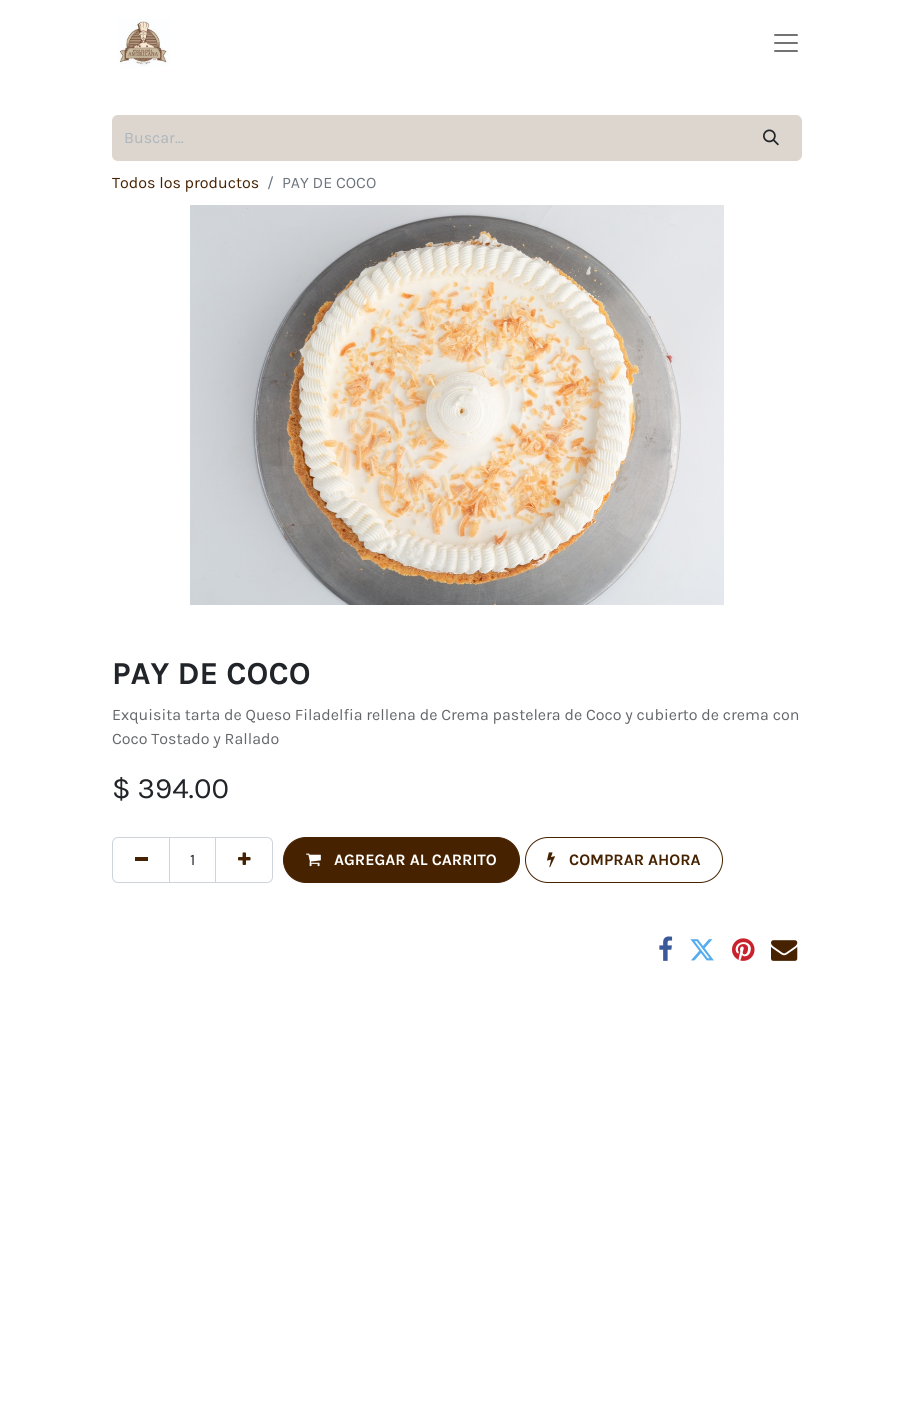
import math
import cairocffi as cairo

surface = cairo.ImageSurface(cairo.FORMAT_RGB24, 914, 1402)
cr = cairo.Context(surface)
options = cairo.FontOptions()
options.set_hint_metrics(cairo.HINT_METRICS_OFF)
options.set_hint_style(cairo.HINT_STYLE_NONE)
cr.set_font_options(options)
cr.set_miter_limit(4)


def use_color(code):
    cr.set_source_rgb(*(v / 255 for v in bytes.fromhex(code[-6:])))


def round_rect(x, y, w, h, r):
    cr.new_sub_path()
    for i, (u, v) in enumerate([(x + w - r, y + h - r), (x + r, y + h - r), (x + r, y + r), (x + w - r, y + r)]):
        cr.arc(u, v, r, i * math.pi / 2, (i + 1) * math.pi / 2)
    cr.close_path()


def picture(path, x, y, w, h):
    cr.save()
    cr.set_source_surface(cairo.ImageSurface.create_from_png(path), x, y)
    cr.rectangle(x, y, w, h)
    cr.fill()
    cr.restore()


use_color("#ffffff")
cr.paint()
picture("img1.png", 117, 19, 54, 48)
picture("img2.png", 774, 34, 24, 18)
use_color("#ddd6cf")
cr.new_path()
cr.move_to(118, 115)
cr.line_to(742, 115)
cr.line_to(742, 161)
cr.line_to(118, 161)
cr.curve_to(114.5, 161, 112, 158.5, 112, 155)
cr.line_to(112, 121)
cr.curve_to(112, 117.5, 114.5, 115, 118, 115)
cr.close_path()
cr.fill()
cr.select_font_face("Karla")
cr.set_font_size(16)
use_color("#adb5bd")
cr.move_to(124, 143)
cr.show_text("Buscar…")
use_color("#ddd6cf")
cr.new_path()
cr.move_to(741.5, 115.5)
cr.line_to(796, 115.5)
cr.curve_to(799, 115.5, 801.5, 118, 801.5, 121)
cr.line_to(801.5, 155)
cr.curve_to(801.5, 158, 799, 160.5, 796, 160.5)
cr.line_to(741.5, 160.5)
cr.close_path()
cr.fill_preserve()
cr.set_line_width(1)
cr.stroke()
picture("img3.png", 763, 129, 16, 17)
use_color("#462201")
cr.move_to(112, 188)
cr.show_text("Todos los productos")
use_color("#6c757d")
cr.move_to(267, 188)
cr.show_text("/")
cr.move_to(282, 188)
cr.show_text("PAY DE COCO")
picture("img4.png", 190, 205, 534, 400)
cr.select_font_face("Karla", cairo.FONT_SLANT_NORMAL, cairo.FONT_WEIGHT_BOLD)
cr.set_font_size(32)
use_color("#212529")
cr.move_to(112, 684)
cr.show_text("PAY DE COCO")
cr.select_font_face("Karla")
cr.set_font_size(16)
use_color("#646669")
cr.move_to(112, 720)
cr.show_text("Exquisita tarta de Queso Filadelfia rellena de Crema pastelera de Coco y cubierto de crema con")
cr.move_to(112, 744)
cr.show_text("Coco Tostado y Rallado")
cr.set_font_size(29.5)
use_color("#212529")
cr.move_to(112, 798)
cr.show_text("$ 394.00")
cr.rectangle(169.5, 837.5, 46, 45)
use_color("#ced4da")
cr.stroke()
cr.new_path()
cr.move_to(118, 837.5)
cr.line_to(169.5, 837.5)
cr.line_to(169.5, 882.5)
cr.line_to(118, 882.5)
cr.curve_to(115, 882.5, 112.5, 880, 112.5, 877)
cr.line_to(112.5, 843)
cr.curve_to(112.5, 840, 115, 837.5, 118, 837.5)
cr.close_path()
cr.stroke()
use_color("#462201")
cr.rectangle(135, 857, 13, 4)
cr.fill()
cr.set_font_size(16)
use_color("#212529")
cr.move_to(190, 865)
cr.show_text("1")
cr.new_path()
cr.move_to(215.5, 837.5)
cr.line_to(267, 837.5)
cr.curve_to(270, 837.5, 272.5, 840, 272.5, 843)
cr.line_to(272.5, 877)
cr.curve_to(272.5, 880, 270, 882.5, 267, 882.5)
cr.line_to(215.5, 882.5)
cr.close_path()
use_color("#ced4da")
cr.stroke()
picture("img5.png", 238, 852, 13, 13)
use_color("#462201")
round_rect(283.5, 837.5, 236, 45, 22.5)
cr.fill_preserve()
cr.stroke()
picture("img6.png", 306, 853, 15, 14)
cr.select_font_face("Karla", cairo.FONT_SLANT_NORMAL, cairo.FONT_WEIGHT_BOLD)
use_color("#ffffff")
cr.move_to(334, 865)
cr.show_text("AGREGAR AL CARRITO")
round_rect(525.5, 837.5, 197, 45, 22.5)
use_color("#462201")
cr.stroke()
picture("img7.png", 547, 852, 8, 16)
cr.move_to(569, 865)
cr.show_text("COMPRAR AHORA")
picture("img8.png", 659, 936, 14, 25)
picture("img9.png", 690, 939, 24, 22)
picture("img10.png", 732, 938, 23, 23)
picture("img11.png", 771, 940, 27, 21)
surface.write_to_png("result.png")
